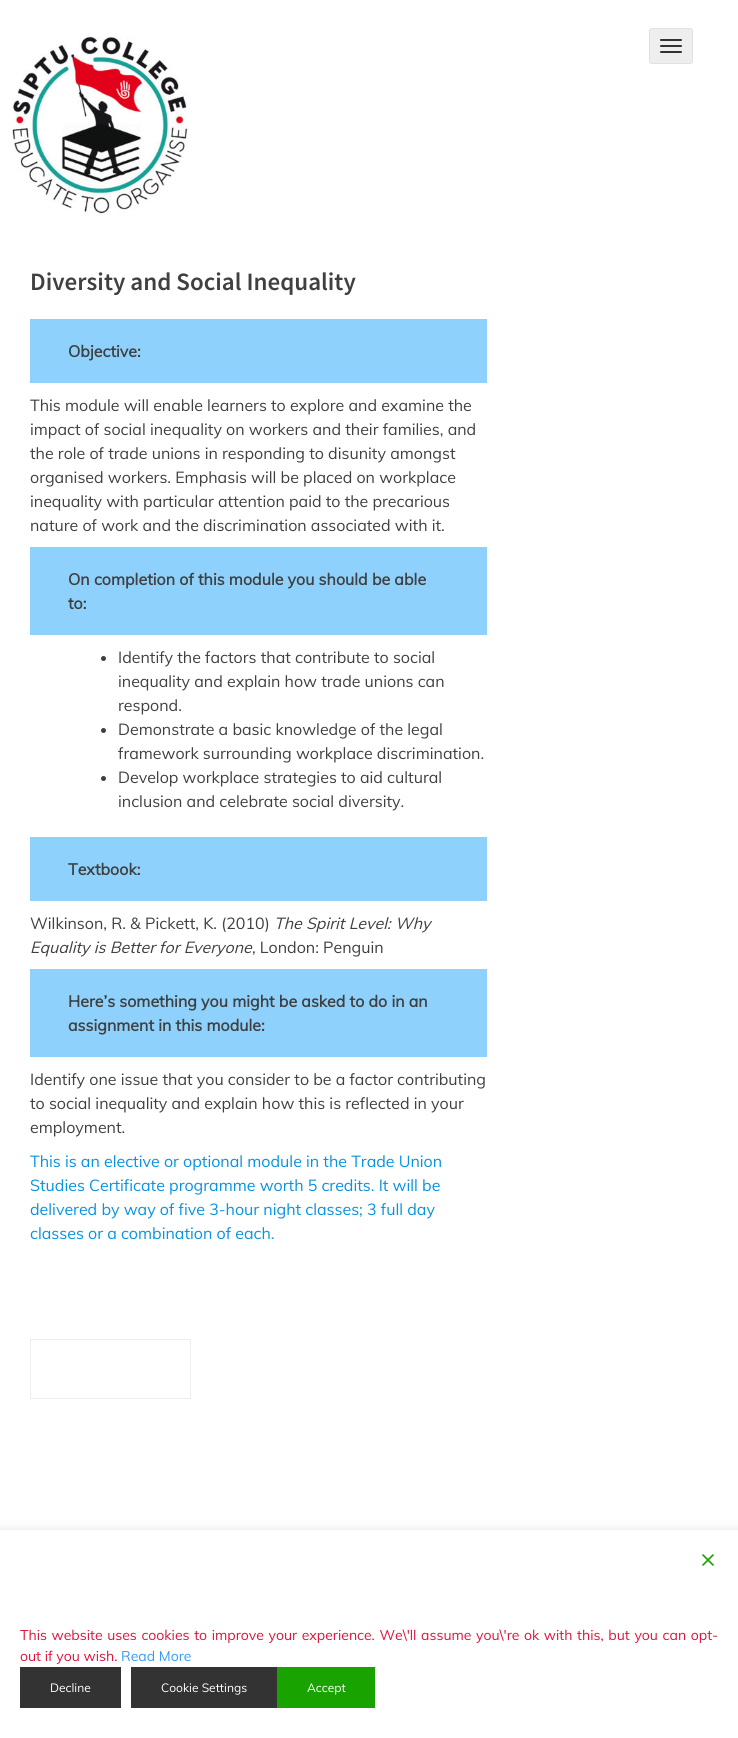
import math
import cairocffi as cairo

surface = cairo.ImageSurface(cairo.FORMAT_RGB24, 738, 1738)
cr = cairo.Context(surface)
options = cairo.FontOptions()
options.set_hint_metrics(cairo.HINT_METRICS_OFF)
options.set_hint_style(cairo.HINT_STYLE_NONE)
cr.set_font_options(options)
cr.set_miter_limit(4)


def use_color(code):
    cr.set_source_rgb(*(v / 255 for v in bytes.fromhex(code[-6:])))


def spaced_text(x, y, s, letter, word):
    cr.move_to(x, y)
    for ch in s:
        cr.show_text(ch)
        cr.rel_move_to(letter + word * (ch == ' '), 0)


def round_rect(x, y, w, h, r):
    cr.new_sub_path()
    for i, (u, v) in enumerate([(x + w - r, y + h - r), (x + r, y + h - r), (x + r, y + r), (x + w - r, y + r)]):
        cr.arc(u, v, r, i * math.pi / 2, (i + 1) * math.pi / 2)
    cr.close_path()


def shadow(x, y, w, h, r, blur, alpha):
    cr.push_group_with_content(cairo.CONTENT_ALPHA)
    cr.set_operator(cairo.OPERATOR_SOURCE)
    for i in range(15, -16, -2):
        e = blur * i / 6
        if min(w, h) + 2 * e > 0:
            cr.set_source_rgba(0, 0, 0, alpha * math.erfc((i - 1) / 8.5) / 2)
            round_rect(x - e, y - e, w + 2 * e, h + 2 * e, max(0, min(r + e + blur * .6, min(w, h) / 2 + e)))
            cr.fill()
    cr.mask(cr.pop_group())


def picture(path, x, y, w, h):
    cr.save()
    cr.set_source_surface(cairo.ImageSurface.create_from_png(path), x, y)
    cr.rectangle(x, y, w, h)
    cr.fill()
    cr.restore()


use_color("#ffffff")
cr.paint()
picture("img1.png", 12, 36, 176, 178)
use_color("#eeeeee")
round_rect(649.5, 28.5, 43, 35, 2.5)
cr.fill_preserve()
use_color("#e1e1e1")
cr.set_line_width(1)
cr.stroke()
use_color("#333333")
round_rect(660, 39, 22, 2, 1)
cr.fill()
round_rect(660, 45, 22, 2, 1)
cr.fill()
round_rect(660, 51, 22, 2, 1)
cr.fill()
cr.select_font_face("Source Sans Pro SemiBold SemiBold")
cr.set_font_size(25)
use_color("#404040")
cr.move_to(30, 290)
cr.show_text("Diversity and Social Inequality")
use_color("#8ed1fc")
cr.rectangle(30, 319, 457, 64)
cr.fill()
cr.select_font_face("Muli", cairo.FONT_SLANT_NORMAL, cairo.FONT_WEIGHT_BOLD)
cr.set_font_size(16)
use_color("#404040")
cr.move_to(68, 357)
cr.show_text("Objective:")
cr.select_font_face("Muli")
cr.move_to(30, 411)
cr.show_text("This module will enable learners to explore and examine the")
cr.move_to(30, 435)
cr.show_text("impact of social inequality on workers and their families, and")
cr.move_to(30, 459)
cr.show_text("the role of trade unions in responding to disunity amongst")
cr.move_to(30, 483)
cr.show_text("organised workers. Emphasis will be placed on workplace")
cr.move_to(30, 507)
cr.show_text("inequality with particular attention paid to the precarious")
cr.move_to(30, 531)
cr.show_text("nature of work and the discrimination associated with it.")
use_color("#8ed1fc")
cr.rectangle(30, 547, 457, 88)
cr.fill()
cr.select_font_face("Muli", cairo.FONT_SLANT_NORMAL, cairo.FONT_WEIGHT_BOLD)
use_color("#404040")
cr.move_to(68, 585)
cr.show_text("On completion of this module you should be able")
cr.move_to(68, 609)
cr.show_text("to:")
cr.new_path()
cr.arc(103.5, 658.5, 2.5, 0, 2 * math.pi)
cr.fill()
cr.select_font_face("Muli")
cr.move_to(118, 663)
cr.show_text("Identify the factors that contribute to social")
cr.move_to(118, 687)
cr.show_text("inequality and explain how trade unions can")
cr.move_to(118, 711)
cr.show_text("respond.")
cr.new_path()
cr.arc(103.5, 730.5, 2.5, 0, 2 * math.pi)
cr.fill()
cr.move_to(118, 735)
cr.show_text("Demonstrate a basic knowledge of the legal")
cr.move_to(118, 759)
cr.show_text("framework surrounding workplace discrimination.")
cr.new_path()
cr.arc(103.5, 778.5, 2.5, 0, 2 * math.pi)
cr.fill()
cr.move_to(118, 783)
cr.show_text("Develop workplace strategies to aid cultural")
cr.move_to(118, 807)
cr.show_text("inclusion and celebrate social diversity.")
use_color("#8ed1fc")
cr.rectangle(30, 837, 457, 64)
cr.fill()
cr.select_font_face("Muli", cairo.FONT_SLANT_NORMAL, cairo.FONT_WEIGHT_BOLD)
use_color("#404040")
cr.move_to(68, 875)
cr.show_text("Textbook:")
cr.select_font_face("Muli")
cr.move_to(30, 929)
cr.show_text("Wilkinson, R. & Pickett, K. (2010)")
cr.select_font_face("Muli", cairo.FONT_SLANT_ITALIC)
cr.move_to(274, 929)
cr.show_text("The Spirit Level: Why")
cr.move_to(30, 953)
cr.show_text("Equality is Better for Everyone")
cr.select_font_face("Muli")
cr.move_to(252, 953)
cr.show_text(", London: Penguin")
use_color("#8ed1fc")
cr.rectangle(30, 969, 457, 88)
cr.fill()
cr.select_font_face("Muli", cairo.FONT_SLANT_NORMAL, cairo.FONT_WEIGHT_BOLD)
use_color("#404040")
cr.move_to(68, 1007)
cr.show_text("Here’s something you might be asked to do in an")
cr.move_to(68, 1031)
cr.show_text("assignment in this module:")
cr.select_font_face("Muli")
cr.move_to(30, 1085)
cr.show_text("Identify one issue that you consider to be a factor contributing")
cr.move_to(30, 1109)
cr.show_text("to social inequality and explain how this is reflected in your")
cr.move_to(30, 1133)
cr.show_text("employment.")
use_color("#0693e3")
cr.move_to(30, 1167)
cr.show_text("This is an elective or optional module in the Trade Union")
cr.move_to(30, 1191)
cr.show_text("Studies Certificate programme worth 5 credits. It will be")
cr.move_to(30, 1215)
cr.show_text("delivered by way of five 3-hour night classes; 3 full day")
cr.move_to(30, 1239)
cr.show_text("classes or a combination of each.")
cr.rectangle(30.5, 1339.5, 160, 59)
use_color("#eeeeee")
cr.stroke()
cr.save()
cr.rectangle(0, 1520, 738, 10)
cr.clip()
use_color("#dddddd")
shadow(-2, 1531, 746, 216, 0, 5.5, 1)
cr.restore()
picture("img2.png", 702, 1554, 12, 12)
cr.set_font_size(14)
use_color("#dc143c")
spaced_text(20, 1640, "This website uses cookies to improve your experience. We\\'ll assume you\\'re ok with this, but you can opt-", 0, 1)
cr.move_to(20, 1661)
cr.show_text("out if you wish.")
use_color("#359bf5")
cr.move_to(121, 1661)
cr.show_text("Read More")
use_color("#333333")
cr.rectangle(20, 1667, 101, 41)
cr.fill()
cr.set_font_size(12)
use_color("#ffffff")
cr.move_to(50, 1692)
cr.show_text("Decline")
use_color("#333333")
cr.rectangle(131, 1667, 146, 41)
cr.fill()
use_color("#ffffff")
cr.move_to(161, 1692)
cr.show_text("Cookie Settings")
use_color("#18a300")
cr.rectangle(277, 1667, 98, 41)
cr.fill()
use_color("#ffffff")
cr.move_to(307, 1692)
cr.show_text("Accept")
surface.write_to_png("result.png")
